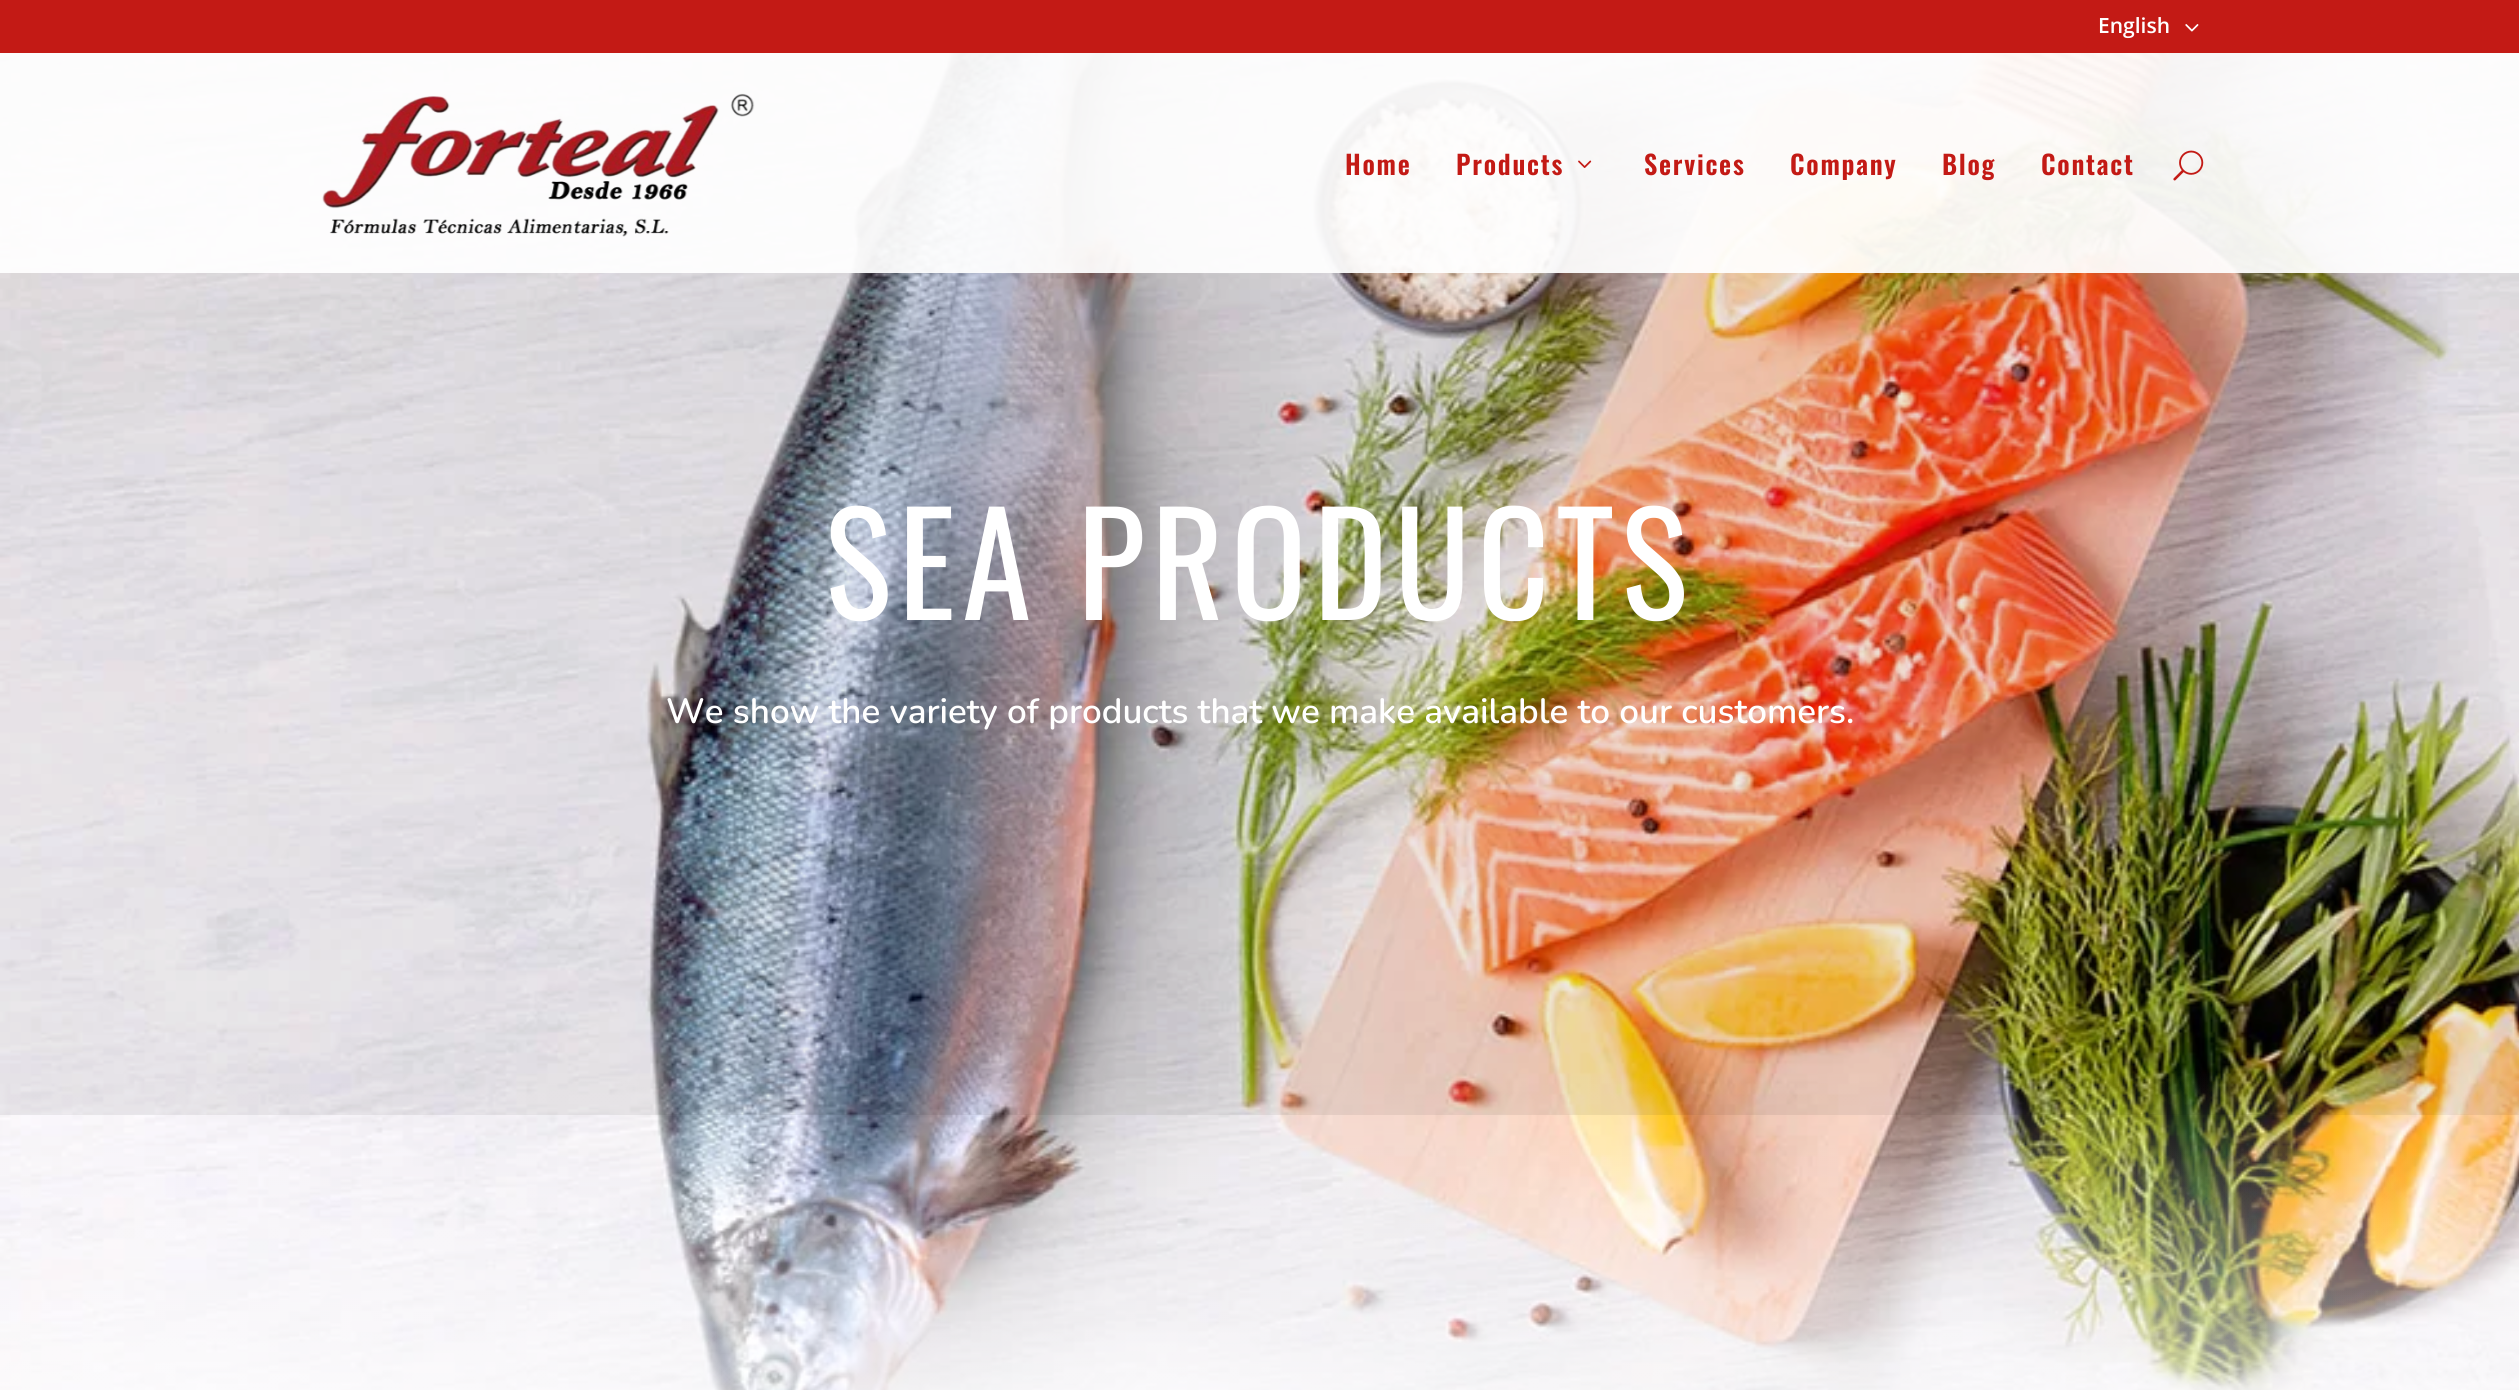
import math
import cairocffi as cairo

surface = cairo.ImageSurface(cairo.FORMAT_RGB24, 2519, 1390)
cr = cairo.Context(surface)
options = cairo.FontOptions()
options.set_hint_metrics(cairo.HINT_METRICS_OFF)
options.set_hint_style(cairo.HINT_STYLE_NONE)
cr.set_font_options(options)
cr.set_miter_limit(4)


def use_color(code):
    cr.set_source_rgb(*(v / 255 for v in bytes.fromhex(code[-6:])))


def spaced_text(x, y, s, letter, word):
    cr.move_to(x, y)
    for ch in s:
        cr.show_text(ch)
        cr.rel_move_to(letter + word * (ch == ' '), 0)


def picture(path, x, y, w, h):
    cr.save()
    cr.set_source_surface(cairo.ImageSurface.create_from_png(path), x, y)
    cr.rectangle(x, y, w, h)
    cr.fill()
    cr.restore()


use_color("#ffffff")
cr.paint()
use_color("#c31a15")
cr.rectangle(0, 0, 2519, 53)
cr.fill()
cr.select_font_face("Open Sans SemiBold")
cr.set_font_size(21)
use_color("#ffffff")
cr.move_to(2098, 33)
cr.show_text("English")
picture("img1.png", 2185, 24, 14, 8)
picture("img5.png", 0, 53, 2519, 1337)
cr.set_source_rgba(0, 0, 0, 0.07)
cr.rectangle(0, 53, 2519, 1062)
cr.fill()
cr.set_source_rgba(1, 1, 1, 0.93)
cr.rectangle(0, 53, 2519, 220)
cr.fill()
picture("img2.png", 322, 93, 433, 144)
cr.select_font_face("Oswald SemiBold")
cr.set_font_size(26.25)
use_color("#c31a15")
spaced_text(1345, 175, "Home", 1.75, 0)
spaced_text(1456, 175, "Products", 1.75, 0)
picture("img3.png", 1578, 160, 14, 8)
spaced_text(1644, 175, "Services", 1.75, 0)
spaced_text(1790, 175, "Company", 1.75, 0)
spaced_text(1942, 175, "Blog", 1.75, 0)
spaced_text(2041, 175, "Contact", 1.75, 0)
picture("img4.png", 2173, 150, 31, 31)
cr.select_font_face("Oswald")
cr.set_font_size(140)
use_color("#ffffff")
spaced_text(825, 620, "SEA PRODUCTS", 7, 0)
cr.select_font_face("Nunito SemiBold")
cr.set_font_size(35)
cr.move_to(666, 723)
cr.show_text("We show the variety of products that we make available to our customers.")
surface.write_to_png("result.png")
